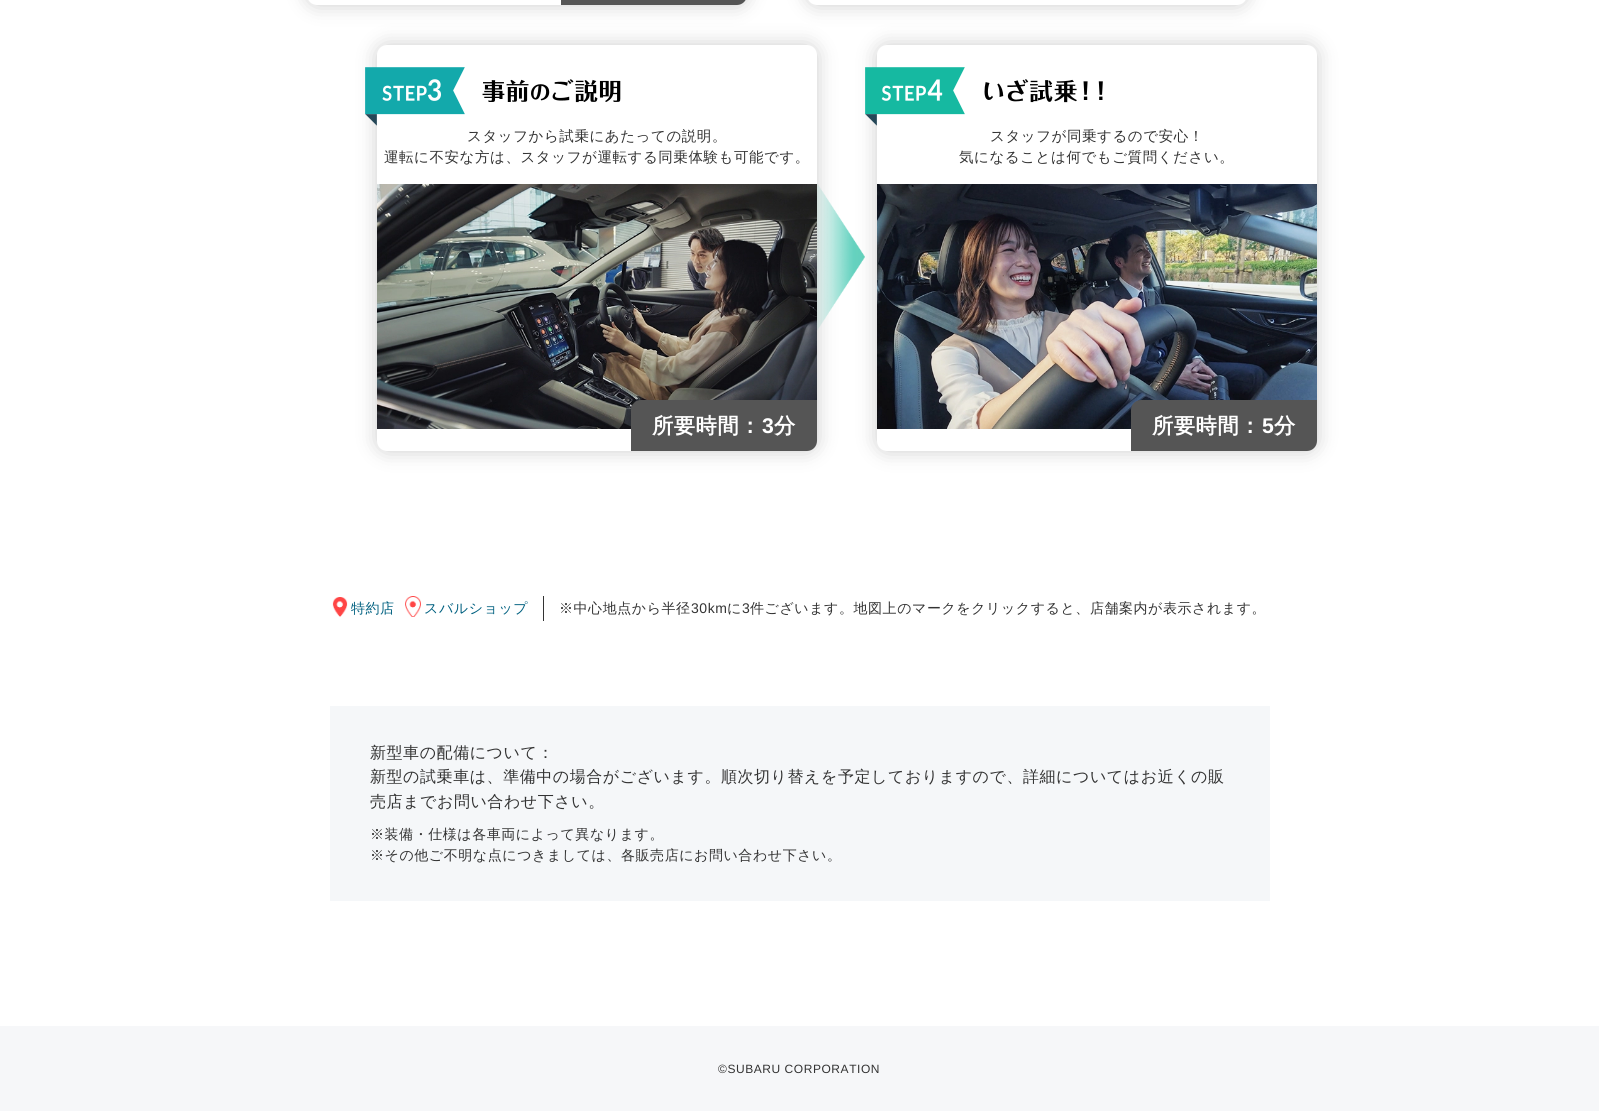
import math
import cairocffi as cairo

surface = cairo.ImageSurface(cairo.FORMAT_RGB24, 1599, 1111)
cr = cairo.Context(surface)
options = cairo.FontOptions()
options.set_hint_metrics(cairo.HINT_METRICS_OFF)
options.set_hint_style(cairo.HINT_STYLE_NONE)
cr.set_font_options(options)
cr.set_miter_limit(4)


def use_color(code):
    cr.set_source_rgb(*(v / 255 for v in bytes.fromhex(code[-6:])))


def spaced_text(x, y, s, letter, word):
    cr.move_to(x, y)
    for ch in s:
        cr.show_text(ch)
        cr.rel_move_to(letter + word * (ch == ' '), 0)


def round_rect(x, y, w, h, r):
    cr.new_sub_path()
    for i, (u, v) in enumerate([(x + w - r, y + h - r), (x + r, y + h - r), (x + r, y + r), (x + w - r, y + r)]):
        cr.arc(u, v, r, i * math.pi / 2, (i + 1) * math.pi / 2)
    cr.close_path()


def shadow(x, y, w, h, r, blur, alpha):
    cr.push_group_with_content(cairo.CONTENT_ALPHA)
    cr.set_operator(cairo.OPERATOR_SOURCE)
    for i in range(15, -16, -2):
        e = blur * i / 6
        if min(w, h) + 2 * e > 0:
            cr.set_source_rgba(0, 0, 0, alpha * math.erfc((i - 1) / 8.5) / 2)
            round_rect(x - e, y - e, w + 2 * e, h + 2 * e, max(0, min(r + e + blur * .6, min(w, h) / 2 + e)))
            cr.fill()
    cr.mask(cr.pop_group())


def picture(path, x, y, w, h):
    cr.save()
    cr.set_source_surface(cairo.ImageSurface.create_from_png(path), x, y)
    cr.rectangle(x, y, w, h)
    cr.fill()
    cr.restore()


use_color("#ffffff")
cr.paint()
use_color("#000000")
shadow(307, -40, 440, 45, 10, 10, 0.2)
use_color("#ffffff")
round_rect(307, -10, 440, 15, 10)
cr.fill()
use_color("#555555")
cr.new_path()
cr.move_to(571, -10)
cr.line_to(747, -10)
cr.line_to(747, -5)
cr.curve_to(747, 0.5, 742.5, 5, 737, 5)
cr.line_to(561, 5)
cr.line_to(561, 0)
cr.curve_to(561, -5.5, 565.5, -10, 571, -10)
cr.close_path()
cr.fill()
use_color("#000000")
shadow(807, -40, 440, 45, 10, 10, 0.2)
use_color("#ffffff")
round_rect(807, -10, 440, 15, 10)
cr.fill()
picture("img3.png", 817, 183, 48, 148)
use_color("#000000")
shadow(377, 45, 440, 406, 10, 10, 0.2)
use_color("#ffffff")
round_rect(377, 45, 440, 406, 10)
cr.fill()
picture("img1.png", 365, 67, 256, 59)
cr.select_font_face("WenQuanYi Zen Hei Medium")
cr.set_font_size(14.5)
use_color("#333333")
spaced_text(467, 141, "スタッフから試乗にあたっての説明。", 0.55, 0)
spaced_text(384, 162, "運転に不安な方は、スタッフが運転する同乗体験も可能です。", 0.55, 0)
picture("img2.png", 377, 184, 440, 245)
use_color("#555555")
cr.new_path()
cr.move_to(641, 400)
cr.line_to(817, 400)
cr.line_to(817, 441)
cr.curve_to(817, 446.5, 812.5, 451, 807, 451)
cr.line_to(631, 451)
cr.line_to(631, 410)
cr.curve_to(631, 404.5, 635.5, 400, 641, 400)
cr.close_path()
cr.fill()
cr.select_font_face("WenQuanYi Zen Hei", cairo.FONT_SLANT_NORMAL, cairo.FONT_WEIGHT_BOLD)
cr.set_font_size(21.25)
use_color("#ffffff")
spaced_text(652, 433, "所要時間：", 0.55, 0)
cr.select_font_face("Liberation Sans", cairo.FONT_SLANT_NORMAL, cairo.FONT_WEIGHT_BOLD)
spaced_text(762, 433, "3", 0.55, 0)
cr.select_font_face("WenQuanYi Zen Hei", cairo.FONT_SLANT_NORMAL, cairo.FONT_WEIGHT_BOLD)
spaced_text(774, 433, "分", 0.55, 0)
use_color("#000000")
shadow(877, 45, 440, 406, 10, 10, 0.2)
use_color("#ffffff")
round_rect(877, 45, 440, 406, 10)
cr.fill()
picture("img4.png", 865, 67, 238, 59)
cr.select_font_face("WenQuanYi Zen Hei Medium")
cr.set_font_size(14.5)
use_color("#333333")
spaced_text(990, 141, "スタッフが同乗するので安心！", 0.55, 0)
spaced_text(959, 162, "気になることは何でもご質問ください。", 0.55, 0)
picture("img5.png", 877, 184, 440, 245)
use_color("#555555")
cr.new_path()
cr.move_to(1141, 400)
cr.line_to(1317, 400)
cr.line_to(1317, 441)
cr.curve_to(1317, 446.5, 1312.5, 451, 1307, 451)
cr.line_to(1131, 451)
cr.line_to(1131, 410)
cr.curve_to(1131, 404.5, 1135.5, 400, 1141, 400)
cr.close_path()
cr.fill()
cr.select_font_face("WenQuanYi Zen Hei", cairo.FONT_SLANT_NORMAL, cairo.FONT_WEIGHT_BOLD)
cr.set_font_size(21.25)
use_color("#ffffff")
spaced_text(1152, 433, "所要時間：", 0.55, 0)
cr.select_font_face("Liberation Sans", cairo.FONT_SLANT_NORMAL, cairo.FONT_WEIGHT_BOLD)
spaced_text(1262, 433, "5", 0.55, 0)
cr.select_font_face("WenQuanYi Zen Hei", cairo.FONT_SLANT_NORMAL, cairo.FONT_WEIGHT_BOLD)
spaced_text(1274, 433, "分", 0.55, 0)
picture("img6.png", 332, 597, 16, 20)
cr.select_font_face("WenQuanYi Zen Hei Medium")
cr.set_font_size(14)
use_color("#006080")
spaced_text(351, 613, "特約店", 0.55, 0)
picture("img7.png", 405, 596, 16, 21)
spaced_text(424, 613, "スバルショップ", 0.55, 0)
use_color("#333333")
cr.rectangle(543, 596, 1, 25)
cr.fill()
spaced_text(559, 613, "※中心地点から半径", 0.55, 0)
cr.select_font_face("Liberation Sans")
spaced_text(691, 613, "30km", 0.55, 0)
cr.select_font_face("WenQuanYi Zen Hei Medium")
spaced_text(727, 613, "に", 0.55, 0)
cr.select_font_face("Liberation Sans")
spaced_text(742, 613, "3", 0.55, 0)
cr.select_font_face("WenQuanYi Zen Hei Medium")
spaced_text(750, 613, "件ございます。地図上のマークをクリックすると、店舗案内が表示されます。", 0.55, 0)
use_color("#f5f7f9")
cr.rectangle(330, 706, 940, 195)
cr.fill()
cr.set_font_size(16)
use_color("#333333")
spaced_text(370, 758, "新型車の配備について：", 0.55, 0)
spaced_text(370, 782, "新型の試乗車は、準備中の場合がございます。順次切り替えを予定しておりますので、詳細についてはお近くの販", 0.55, 0)
spaced_text(370, 807, "売店までお問い合わせ下さい。", 0.55, 0)
cr.set_font_size(14)
spaced_text(370, 839, "※装備・仕様は各車両によって異なります。", 0.55, 0)
spaced_text(370, 860, "※その他ご不明な点につきましては、各販売店にお問い合わせ下さい。", 0.55, 0)
use_color("#f6f7f9")
cr.rectangle(0, 1026, 1599, 85)
cr.fill()
cr.select_font_face("Liberation Sans")
cr.set_font_size(12)
use_color("#333333")
spaced_text(718, 1073, "©SUBARU CORPORATION", 0.55, 0)
surface.write_to_png("result.png")
